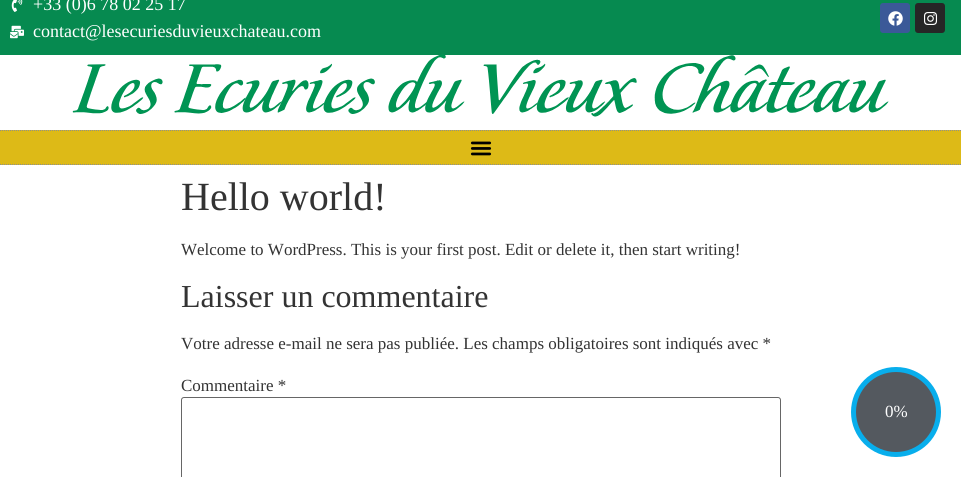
import math
import cairocffi as cairo

surface = cairo.ImageSurface(cairo.FORMAT_RGB24, 961, 477)
cr = cairo.Context(surface)
options = cairo.FontOptions()
options.set_hint_metrics(cairo.HINT_METRICS_OFF)
options.set_hint_style(cairo.HINT_STYLE_NONE)
cr.set_font_options(options)
cr.set_miter_limit(4)


def use_color(code):
    cr.set_source_rgb(*(v / 255 for v in bytes.fromhex(code[-6:])))


def round_rect(x, y, w, h, r):
    cr.new_sub_path()
    for i, (u, v) in enumerate([(x + w - r, y + h - r), (x + r, y + h - r), (x + r, y + r), (x + w - r, y + r)]):
        cr.arc(u, v, r, i * math.pi / 2, (i + 1) * math.pi / 2)
    cr.close_path()


def picture(path, x, y, w, h):
    cr.save()
    cr.set_source_surface(cairo.ImageSurface.create_from_png(path), x, y)
    cr.rectangle(x, y, w, h)
    cr.fill()
    cr.restore()


use_color("#ffffff")
cr.paint()
use_color("#068a50")
cr.rectangle(0, 0, 961, 55)
cr.fill()
picture("img1.png", 11, 0, 12, 12)
cr.select_font_face("Liberation Serif")
cr.set_font_size(18)
use_color("#ffffff")
cr.move_to(33, 10)
cr.show_text("+33 (0)6 78 02 25 17")
picture("img2.png", 10, 25, 14, 14)
cr.move_to(33, 37)
cr.show_text("contact@lesecuriesduvieuxchateau.com")
use_color("#3b5998")
round_rect(880, 3, 30, 30, 3)
cr.fill()
picture("img3.png", 888, 11, 15, 15)
use_color("#262626")
round_rect(915, 3, 30, 30, 3)
cr.fill()
picture("img4.png", 924, 12, 14, 13)
picture("img5.png", 72, 54, 817, 63)
use_color("#ddba17")
cr.rectangle(0, 130, 961, 35)
cr.fill()
cr.new_path()
cr.move_to(0, 130.5)
cr.line_to(961, 130.5)
use_color("#8e8e8e")
cr.set_line_width(1)
cr.set_dash([1, 1])
cr.stroke()
cr.new_path()
cr.move_to(0, 164.5)
cr.line_to(961, 164.5)
cr.stroke()
picture("img6.png", 470, 141, 22, 15)
cr.set_font_size(40)
use_color("#333333")
cr.move_to(181, 210)
cr.show_text("Hello world!")
cr.set_font_size(17)
cr.move_to(181, 255)
cr.show_text("Welcome to WordPress. This is your first post. Edit or delete it, then start writing!")
cr.set_font_size(32)
cr.move_to(181, 307)
cr.show_text("Laisser un commentaire")
cr.set_font_size(17)
cr.move_to(181, 349)
cr.show_text("Votre adresse e-mail ne sera pas publiée. Les champs obligatoires sont indiqués avec *")
cr.move_to(181, 391)
cr.show_text("Commentaire *")
round_rect(181.5, 397.5, 599, 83, 2.5)
use_color("#666666")
cr.set_dash([])
cr.stroke()
use_color("#08aeec")
cr.new_path()
cr.move_to(896, 367)
cr.line_to(896, 457)
cr.curve_to(871, 457, 851, 437, 851, 412)
cr.curve_to(851, 387, 871, 367, 896, 367)
cr.close_path()
cr.fill()
cr.new_path()
cr.move_to(896, 367)
cr.curve_to(921, 367, 941, 387, 941, 412)
cr.curve_to(941, 437, 921, 457, 896, 457)
cr.close_path()
cr.fill()
use_color("#54595f")
cr.arc(896, 412, 40, 0, 2 * math.pi)
cr.fill()
use_color("#ffffff")
cr.move_to(885, 417)
cr.show_text("0%")
surface.write_to_png("result.png")
